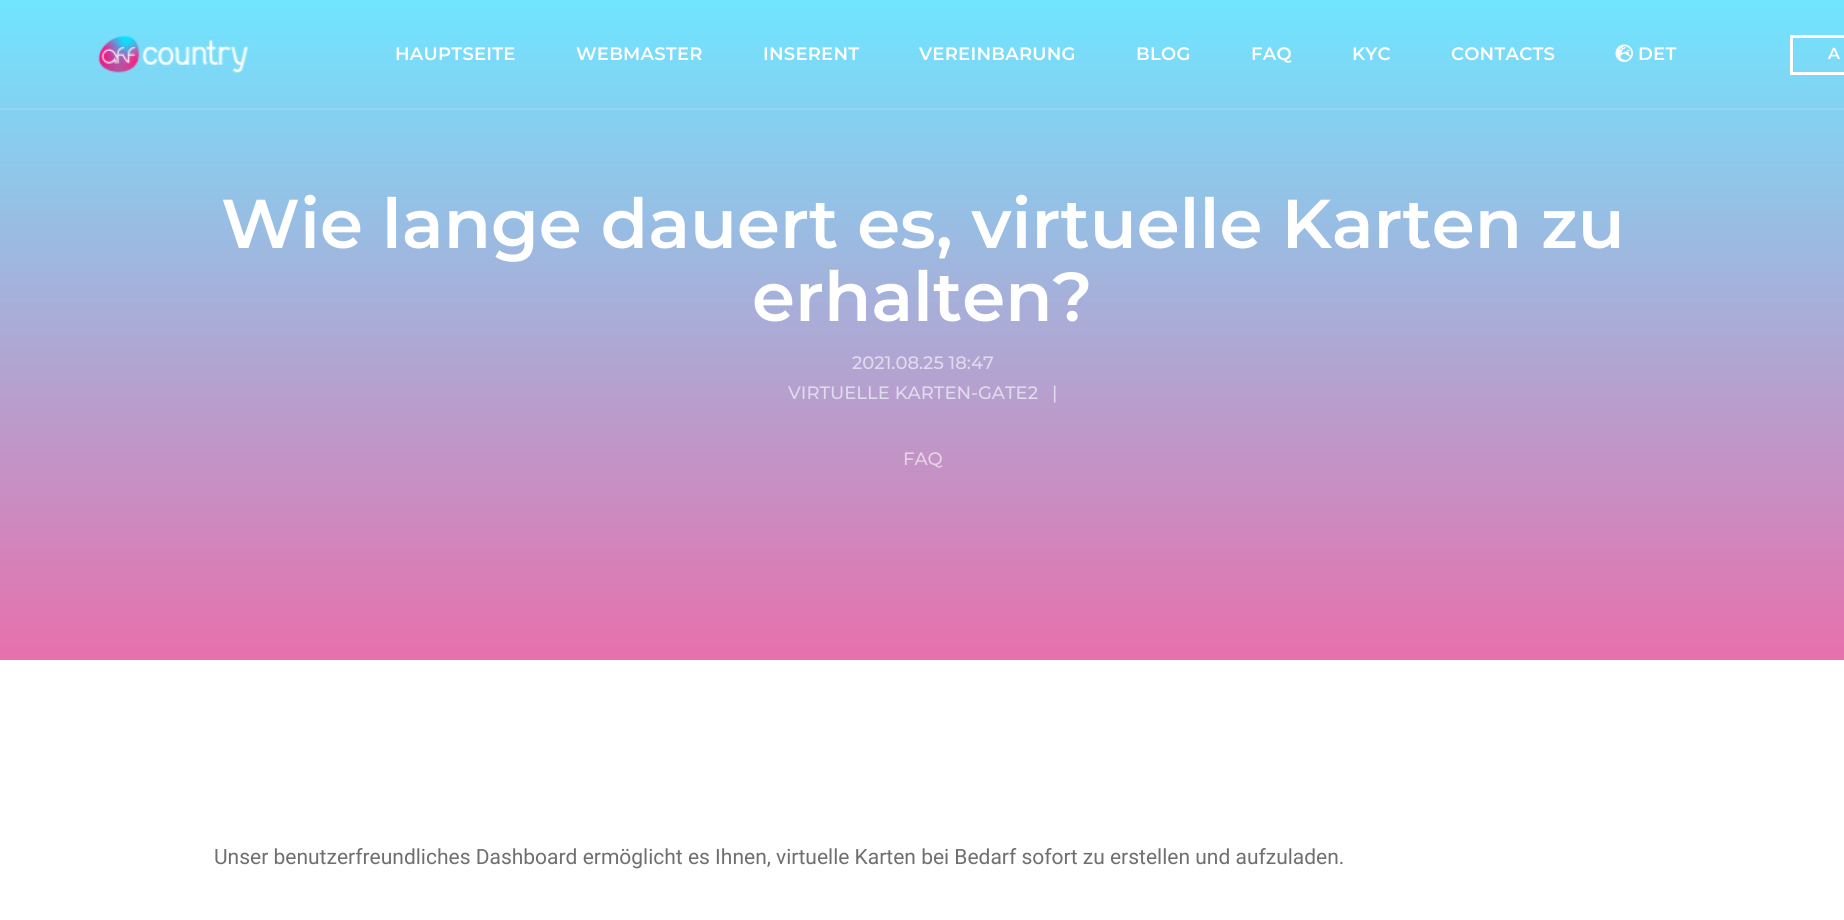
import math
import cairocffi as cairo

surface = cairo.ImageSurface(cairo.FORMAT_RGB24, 1844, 920)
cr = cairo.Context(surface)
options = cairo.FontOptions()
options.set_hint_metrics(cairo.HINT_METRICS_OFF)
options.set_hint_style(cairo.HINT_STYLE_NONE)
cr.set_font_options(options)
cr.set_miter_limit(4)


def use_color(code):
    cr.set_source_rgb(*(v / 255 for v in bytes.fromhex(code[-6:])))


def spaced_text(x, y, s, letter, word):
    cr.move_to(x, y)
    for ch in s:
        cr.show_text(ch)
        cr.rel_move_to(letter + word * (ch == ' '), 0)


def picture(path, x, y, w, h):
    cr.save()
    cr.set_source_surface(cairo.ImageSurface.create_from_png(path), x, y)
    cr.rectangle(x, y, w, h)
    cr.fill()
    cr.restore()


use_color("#ffffff")
cr.paint()
gradient = cairo.LinearGradient(923, 660, 923, 0)
gradient.add_color_stop_rgba(0, 0.906, 0.439, 0.678, 1)
gradient.add_color_stop_rgba(1, 0.439, 0.898, 1, 1)
cr.set_source(gradient)
cr.rectangle(0, 0, 1844, 660)
cr.fill()
use_color("#90d7f3")
cr.rectangle(0, 108, 1844, 2)
cr.fill()
picture("img1.png", 98, 35, 151, 38)
cr.select_font_face("Montserrat SemiBold")
cr.set_font_size(18)
use_color("#ffffff")
spaced_text(395, 60, "HAUPTSEITE", 0.25, 0)
spaced_text(576, 60, "WEBMASTER", 0.25, 0)
spaced_text(763, 60, "INSERENT", 0.25, 0)
spaced_text(919, 60, "VEREINBARUNG", 0.25, 0)
spaced_text(1136, 60, "BLOG", 0.25, 0)
spaced_text(1251, 60, "FAQ", 0.25, 0)
spaced_text(1352, 60, "KYC", 0.25, 0)
spaced_text(1451, 60, "CONTACTS", 0.25, 0)
picture("img2.png", 1615, 44, 18, 18)
spaced_text(1638, 60, "DET", 0.25, 0)
cr.rectangle(1791.5, 36.5, 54, 37)
cr.set_line_width(3)
cr.stroke()
cr.set_font_size(16)
spaced_text(1828, 59, "A", 1, 0)
cr.set_font_size(69)
cr.move_to(221, 248)
cr.show_text("Wie lange dauert es, virtuelle Karten zu")
cr.move_to(752, 321)
cr.show_text("erhalten?")
cr.select_font_face("Montserrat Medium")
cr.set_font_size(18)
use_color("#e0dbed")
cr.move_to(852, 369)
cr.show_text("2021.08.25 18:47")
cr.move_to(788, 399)
cr.show_text("VIRTUELLE KARTEN-GATE2")
cr.move_to(1052, 399)
cr.show_text("|")
use_color("#e7d4e8")
cr.move_to(903, 465)
cr.show_text("FAQ")
cr.select_font_face("Roboto")
cr.set_font_size(21)
use_color("#6f6f6f")
cr.move_to(214, 864)
cr.show_text("Unser benutzerfreundliches Dashboard ermöglicht es Ihnen, virtuelle Karten bei Bedarf sofort zu erstellen und aufzuladen.")
surface.write_to_png("result.png")
